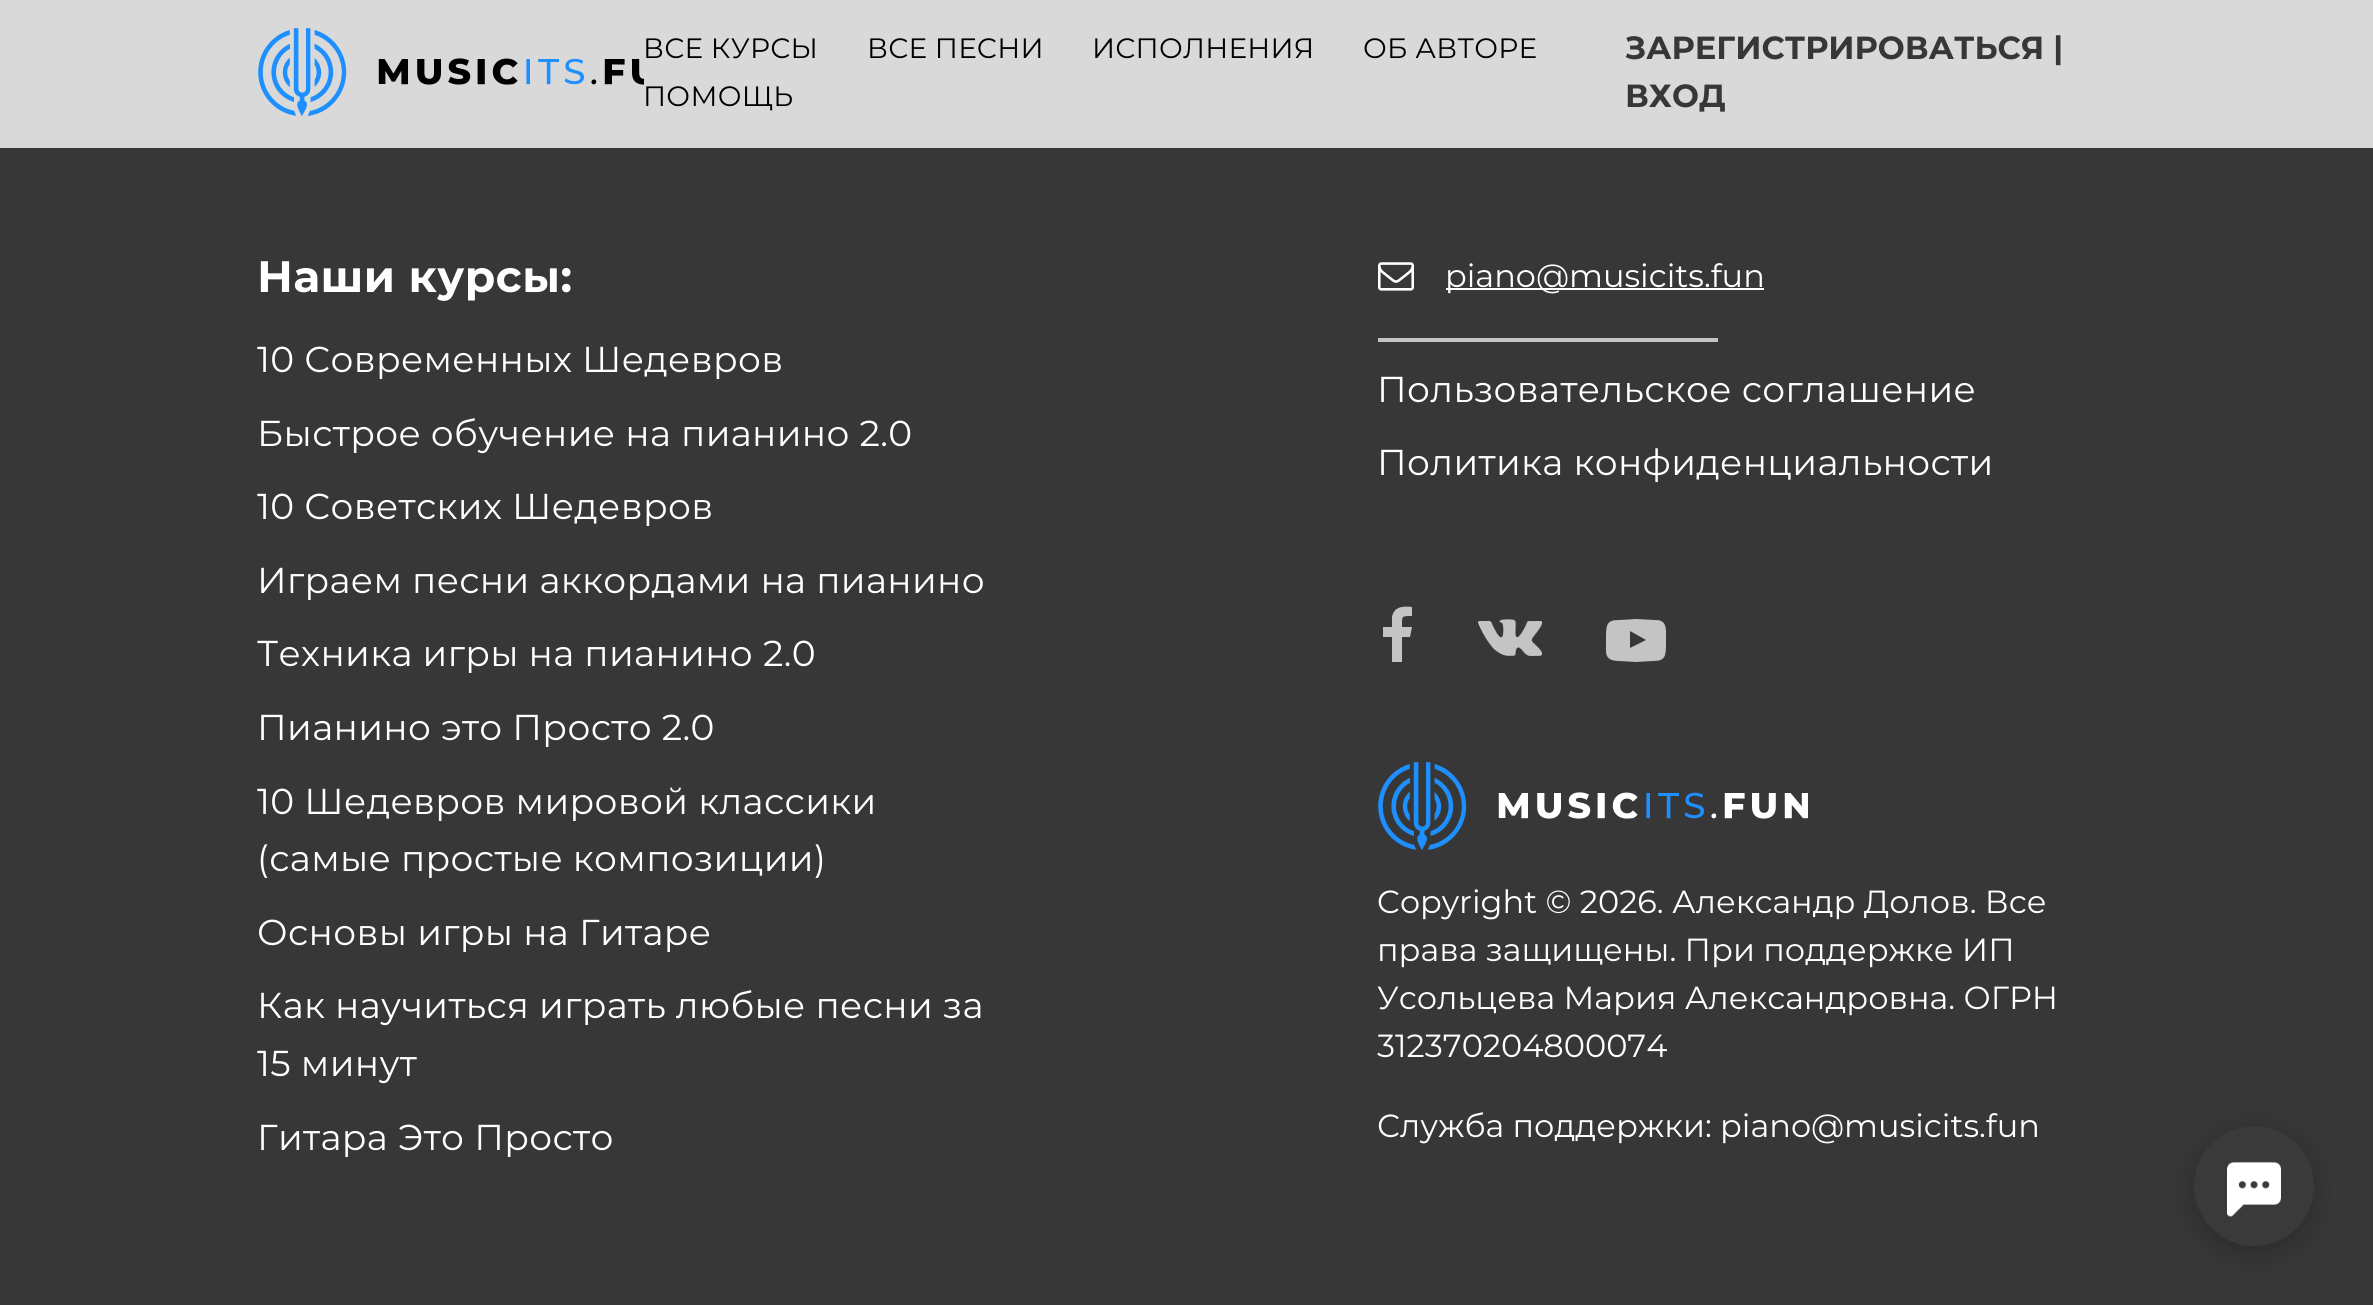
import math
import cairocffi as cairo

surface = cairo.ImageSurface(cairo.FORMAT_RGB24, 2373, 1305)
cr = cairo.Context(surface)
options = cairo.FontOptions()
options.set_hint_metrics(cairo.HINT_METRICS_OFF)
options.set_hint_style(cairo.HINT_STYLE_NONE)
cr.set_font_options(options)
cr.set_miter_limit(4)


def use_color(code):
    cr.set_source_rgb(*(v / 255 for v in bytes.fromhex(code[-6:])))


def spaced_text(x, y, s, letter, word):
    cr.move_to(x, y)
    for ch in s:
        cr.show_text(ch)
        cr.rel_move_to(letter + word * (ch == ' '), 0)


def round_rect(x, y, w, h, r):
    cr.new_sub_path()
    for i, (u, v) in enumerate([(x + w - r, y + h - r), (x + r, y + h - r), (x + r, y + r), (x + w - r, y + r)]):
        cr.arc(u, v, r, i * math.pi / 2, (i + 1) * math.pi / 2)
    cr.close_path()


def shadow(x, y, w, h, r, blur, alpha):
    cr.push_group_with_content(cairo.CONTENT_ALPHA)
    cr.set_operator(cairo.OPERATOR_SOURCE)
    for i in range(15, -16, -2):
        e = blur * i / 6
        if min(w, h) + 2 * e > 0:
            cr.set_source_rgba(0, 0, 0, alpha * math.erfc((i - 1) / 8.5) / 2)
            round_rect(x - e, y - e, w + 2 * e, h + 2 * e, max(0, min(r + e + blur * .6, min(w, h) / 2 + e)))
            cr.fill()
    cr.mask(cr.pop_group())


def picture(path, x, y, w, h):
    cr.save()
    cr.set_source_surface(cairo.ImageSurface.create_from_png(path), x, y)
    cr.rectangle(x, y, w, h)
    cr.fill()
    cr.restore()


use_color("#373737")
cr.paint()
use_color("#d9d9d9")
cr.rectangle(0, 0, 2373, 148)
cr.fill()
picture("img1.png", 258, 28, 386, 88)
cr.select_font_face("Montserrat")
cr.set_font_size(28)
use_color("#000000")
spaced_text(643, 58, "ВСЕ КУРСЫ", 0.25, 0)
spaced_text(867, 58, "ВСЕ ПЕСНИ", 0.25, 0)
spaced_text(1092, 58, "ИСПОЛНЕНИЯ", 0.25, 0)
spaced_text(1363, 58, "ОБ АВТОРЕ", 0.25, 0)
spaced_text(643, 106, "ПОМОЩЬ", 0.25, 0)
cr.select_font_face("Montserrat", cairo.FONT_SLANT_NORMAL, cairo.FONT_WEIGHT_BOLD)
cr.set_font_size(32)
use_color("#373737")
cr.move_to(1625, 59)
cr.show_text("ЗАРЕГИСТРИРОВАТЬСЯ |")
cr.move_to(1625, 107)
cr.show_text("ВХОД")
cr.set_font_size(44)
use_color("#ffffff")
spaced_text(257, 292, "Наши курсы:", 0.5, 0)
cr.select_font_face("Montserrat")
cr.set_font_size(36)
spaced_text(257, 372, "10 Современных Шедевров", 0.35, 0)
spaced_text(257, 446, "Быстрое обучение на пианино 2.0", 0.35, 0)
spaced_text(257, 519, "10 Советских Шедевров", 0.35, 0)
spaced_text(257, 593, "Играем песни аккордами на пианино", 0.35, 0)
spaced_text(257, 666, "Техника игры на пианино 2.0", 0.35, 0)
spaced_text(257, 740, "Пианино это Просто 2.0", 0.35, 0)
spaced_text(257, 814, "10 Шедевров мировой классики", 0.35, 0)
spaced_text(257, 871, "(самые простые композиции)", 0.35, 0)
spaced_text(257, 945, "Основы игры на Гитаре", 0.35, 0)
spaced_text(257, 1018, "Как научиться играть любые песни за", 0.35, 0)
spaced_text(257, 1076, "15 минут", 0.35, 0)
spaced_text(257, 1150, "Гитара Это Просто", 0.35, 0)
picture("img2.png", 1378, 262, 36, 29)
cr.rectangle(1446, 288, 318, 2)
cr.fill()
cr.set_font_size(32)
cr.move_to(1445, 287)
cr.show_text("piano@musicits.fun")
use_color("#c4c4c4")
cr.rectangle(1378, 338, 340, 4)
cr.fill()
cr.set_font_size(36)
use_color("#ffffff")
spaced_text(1377, 402, "Пользовательское соглашение", 0.35, 0)
spaced_text(1377, 475, "Политика конфиденциальности", 0.35, 0)
use_color("#c4c4c4")
cr.new_path()
cr.move_to(1412, 607)
cr.line_to(1412, 616)
cr.curve_to(1401, 616, 1402, 616, 1402, 627)
cr.line_to(1412, 627)
cr.line_to(1410, 637)
cr.line_to(1402, 637)
cr.line_to(1402, 662)
cr.line_to(1392, 662)
cr.line_to(1392, 637)
cr.line_to(1383, 637)
cr.line_to(1383, 627)
cr.line_to(1392, 627)
cr.line_to(1392, 617)
cr.curve_to(1394, 606, 1404, 606, 1412, 607)
cr.close_path()
cr.fill()
picture("img3.png", 1478, 619, 64, 37)
cr.set_fill_rule(cairo.FILL_RULE_EVEN_ODD)
cr.new_path()
cr.move_to(1636, 619)
cr.line_to(1654, 620)
cr.curve_to(1661, 620, 1665, 621, 1666, 630)
cr.line_to(1666, 641)
cr.curve_to(1666, 656, 1666, 661, 1653, 661)
cr.line_to(1636, 662)
cr.line_to(1619, 661)
cr.curve_to(1609, 661, 1606, 657, 1606, 651)
cr.line_to(1606, 640)
cr.curve_to(1606, 625, 1606, 620, 1619, 620)
cr.close_path()
cr.move_to(1630, 648)
cr.line_to(1630, 631)
cr.line_to(1646, 640)
cr.close_path()
cr.fill()
picture("img4.png", 1378, 762, 430, 88)
cr.set_font_size(32)
use_color("#ffffff")
cr.move_to(1377, 913)
cr.show_text("Copyright © 2026. Александр Долов. Все")
cr.move_to(1377, 961)
cr.show_text("права защищены. При поддержке ИП")
cr.move_to(1377, 1009)
cr.show_text("Усольцева Мария Александровна. ОГРН")
cr.move_to(1377, 1057)
cr.show_text("312370204800074")
cr.move_to(1377, 1137)
cr.show_text("Служба поддержки: piano@musicits.fun")
use_color("#000000")
shadow(2192, 1130, 124, 124, 62, 12, 0.2)
use_color("#3a3a3a")
cr.arc(2254, 1186, 60, 0, 2 * math.pi)
cr.fill()
picture("img5.png", 2227, 1162, 54, 55)
surface.write_to_png("result.png")
